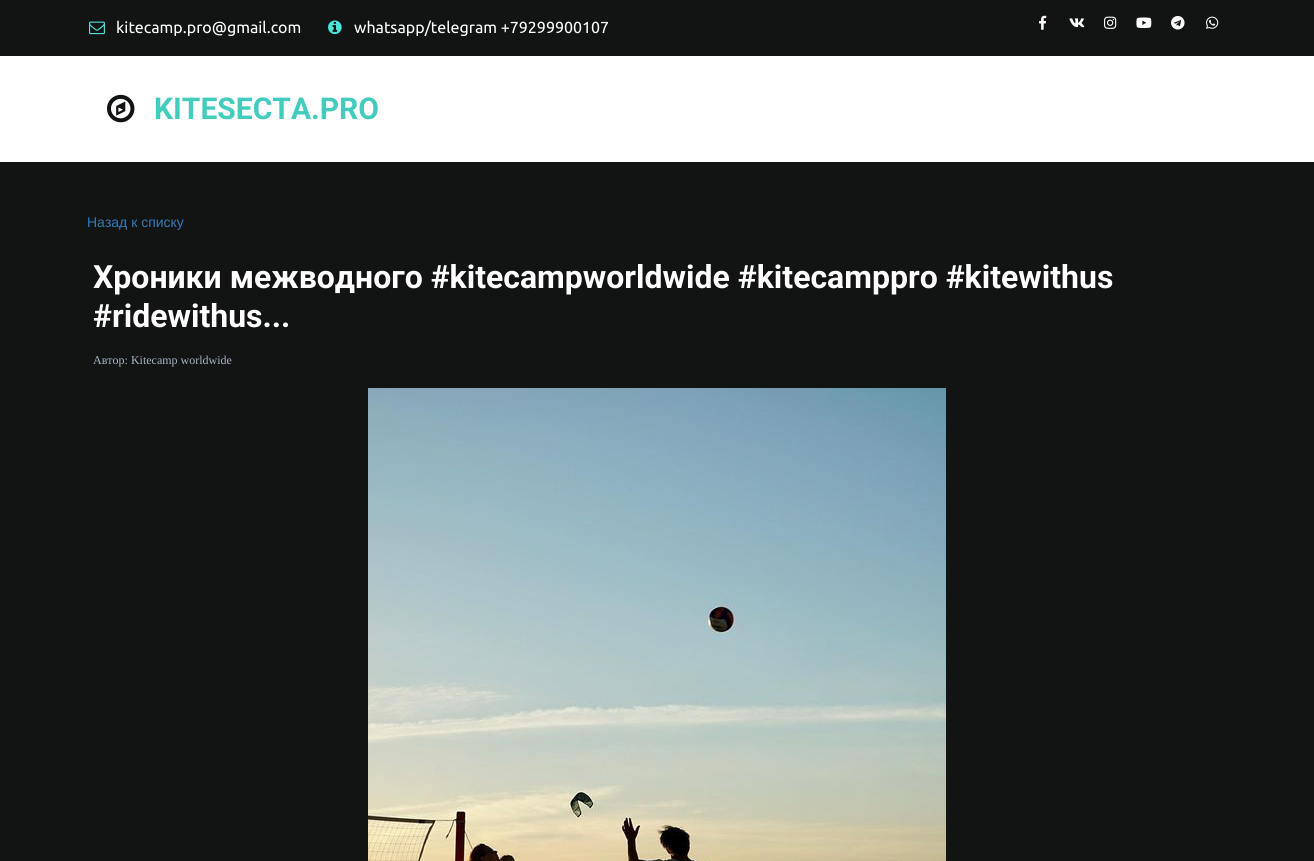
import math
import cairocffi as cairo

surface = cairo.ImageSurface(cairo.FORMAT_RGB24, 1314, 861)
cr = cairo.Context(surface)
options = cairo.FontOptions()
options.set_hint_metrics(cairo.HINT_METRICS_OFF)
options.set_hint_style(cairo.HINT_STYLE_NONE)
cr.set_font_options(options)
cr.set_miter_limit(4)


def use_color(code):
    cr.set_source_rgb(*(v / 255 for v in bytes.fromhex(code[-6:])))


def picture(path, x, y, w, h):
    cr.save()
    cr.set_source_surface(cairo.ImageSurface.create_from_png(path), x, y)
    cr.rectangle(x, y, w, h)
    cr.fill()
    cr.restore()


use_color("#121414")
cr.paint()
picture("img1.png", 89, 21, 16, 14)
cr.select_font_face("Ubuntu")
cr.set_font_size(16)
use_color("#ffffff")
cr.move_to(116, 33)
cr.show_text("kitecamp.pro@gmail.com")
picture("img2.png", 328, 20, 14, 15)
cr.move_to(354, 33)
cr.show_text("whatsapp/telegram +79299900107")
picture("img3.png", 1039, 15, 8, 15)
picture("img4.png", 1069, 18, 16, 10)
picture("img5.png", 1104, 16, 13, 13)
picture("img6.png", 1136, 17, 16, 11)
picture("img7.png", 1171, 16, 14, 14)
picture("img8.png", 1206, 16, 13, 13)
cr.rectangle(0, 56, 1314, 106)
cr.fill()
picture("img9.png", 107, 94, 28, 29)
cr.select_font_face("Roboto", cairo.FONT_SLANT_NORMAL, cairo.FONT_WEIGHT_BOLD)
cr.set_font_size(30)
use_color("#42ccbe")
cr.move_to(154, 119)
cr.show_text("KITESECTA.PRO")
cr.select_font_face("Liberation Sans")
cr.set_font_size(14)
use_color("#337ab7")
cr.move_to(87, 227)
cr.show_text("Назад к списку")
cr.select_font_face("Roboto", cairo.FONT_SLANT_NORMAL, cairo.FONT_WEIGHT_BOLD)
cr.set_font_size(32)
use_color("#ffffff")
cr.move_to(93, 288)
cr.show_text("Хроники межводного #kitecampworldwide #kitecamppro #kitewithus")
cr.move_to(93, 327)
cr.show_text("#ridewithus...")
cr.select_font_face("Liberation Serif")
cr.set_font_size(12)
use_color("#a7b5c3")
cr.move_to(93, 364)
cr.show_text("Автор: Kitecamp worldwide")
picture("img10.png", 368, 388, 578, 473)
surface.write_to_png("result.png")
